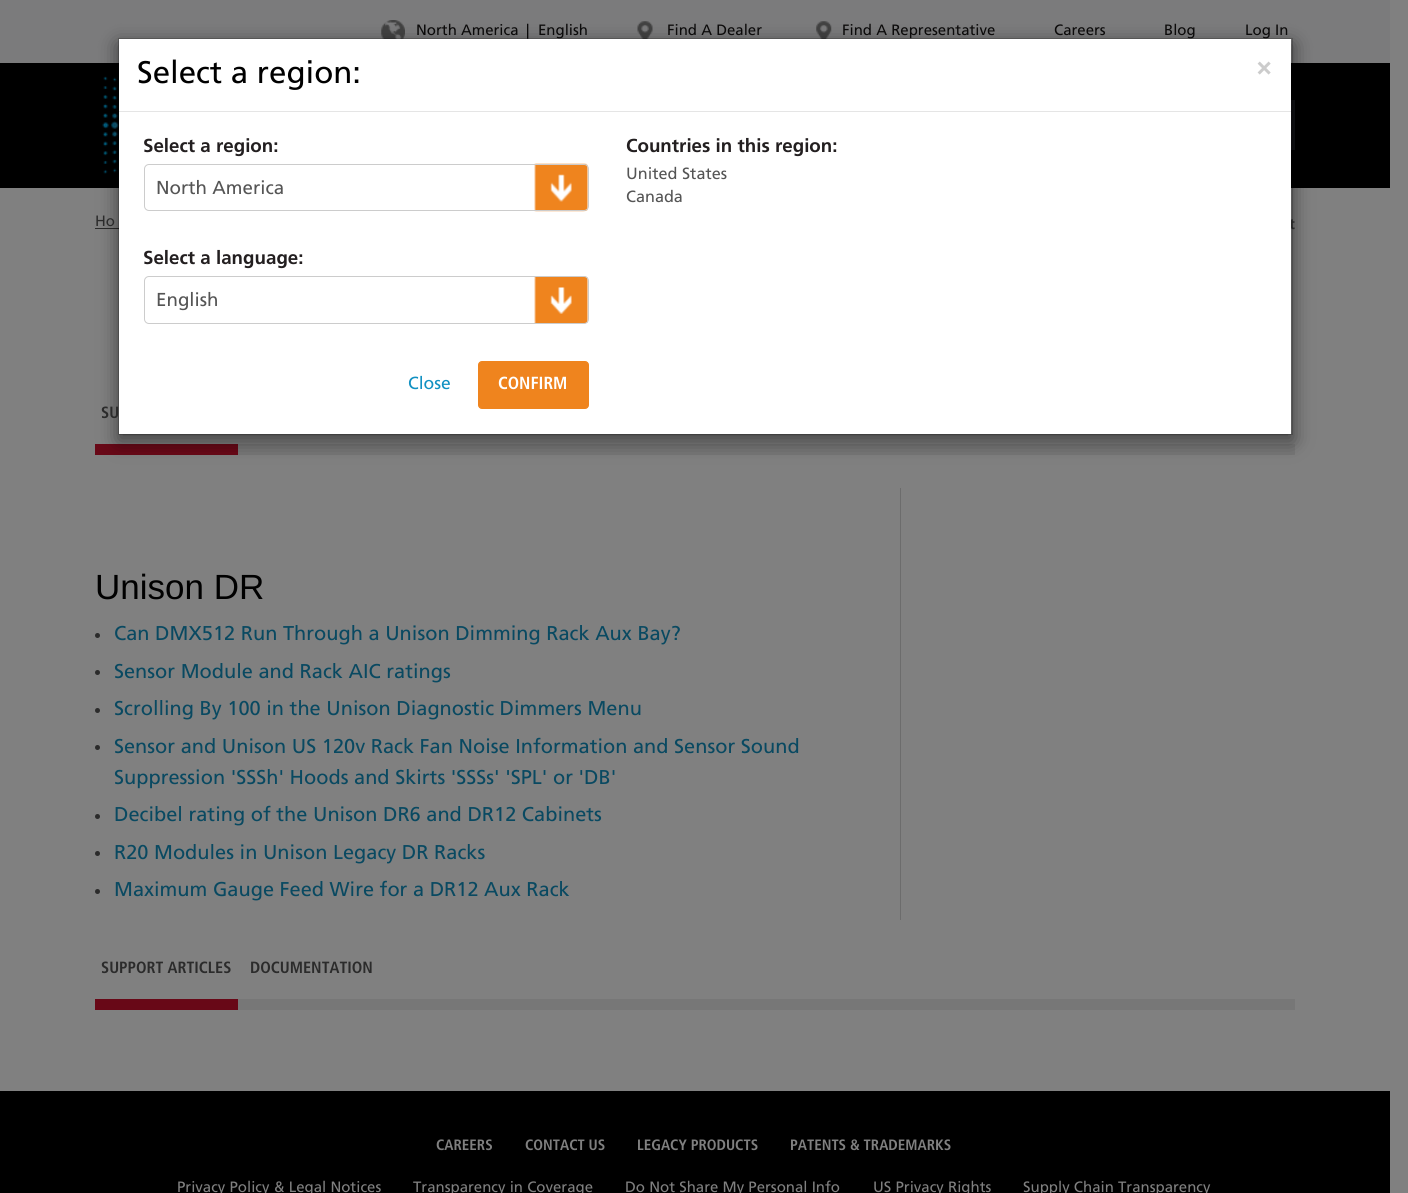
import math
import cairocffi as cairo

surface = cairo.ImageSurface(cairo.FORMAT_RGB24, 1408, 1193)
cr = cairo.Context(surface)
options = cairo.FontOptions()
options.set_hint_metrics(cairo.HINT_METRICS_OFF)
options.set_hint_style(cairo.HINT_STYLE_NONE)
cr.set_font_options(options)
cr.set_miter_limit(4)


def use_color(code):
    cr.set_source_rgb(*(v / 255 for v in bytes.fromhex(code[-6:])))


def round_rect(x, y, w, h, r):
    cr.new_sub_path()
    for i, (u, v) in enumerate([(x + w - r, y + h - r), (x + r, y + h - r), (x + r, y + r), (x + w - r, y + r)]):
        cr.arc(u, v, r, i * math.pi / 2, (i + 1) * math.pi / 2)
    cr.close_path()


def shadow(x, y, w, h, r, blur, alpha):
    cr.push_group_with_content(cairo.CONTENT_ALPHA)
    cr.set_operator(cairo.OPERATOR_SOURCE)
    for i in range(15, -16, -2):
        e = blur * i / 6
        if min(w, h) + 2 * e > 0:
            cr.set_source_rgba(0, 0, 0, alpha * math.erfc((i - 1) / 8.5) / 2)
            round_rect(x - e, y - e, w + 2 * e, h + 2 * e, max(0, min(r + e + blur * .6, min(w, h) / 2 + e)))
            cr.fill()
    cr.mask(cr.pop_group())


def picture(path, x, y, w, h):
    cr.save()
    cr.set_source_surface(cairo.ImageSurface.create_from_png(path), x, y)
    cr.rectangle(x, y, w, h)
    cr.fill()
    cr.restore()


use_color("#808080")
cr.paint()
use_color("#7b7b7c")
cr.rectangle(0, 0, 1390, 63)
cr.fill()
picture("img1.png", 381, 20, 24, 19)
cr.select_font_face("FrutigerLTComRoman")
cr.set_font_size(15)
use_color("#0c0b0b")
cr.move_to(416, 35)
cr.show_text("North America")
cr.move_to(526, 35)
cr.show_text("|")
cr.move_to(538, 35)
cr.show_text("English")
picture("img4.png", 637, 21, 16, 18)
picture("img5.png", 816, 21, 16, 18)
use_color("#000000")
cr.rectangle(0, 63, 1390, 125)
cr.fill()
picture("img6.png", 102, 76, 17, 98)
use_color("#101114")
cr.rectangle(1291, 100, 4, 50)
cr.fill()
use_color("#2b2b2b")
cr.rectangle(95, 228, 24, 1)
cr.fill()
use_color("#777777")
cr.rectangle(238, 444, 1057, 11)
cr.fill()
use_color("#680817")
cr.rectangle(95, 444, 143, 11)
cr.fill()
use_color("#000000")
shadow(118, 44, 1175, 397, 0, 9.5, 0.5)
cr.select_font_face("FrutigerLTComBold")
use_color("#2b2b2b")
cr.move_to(1289, 229)
cr.show_text("t")
use_color("#ffffff")
cr.rectangle(119, 39, 1172, 395)
cr.fill()
cr.select_font_face("FrutigerLTComRoman")
use_color("#0c0b0b")
cr.move_to(842, 35)
cr.show_text("Find A Representative")
cr.move_to(1164, 35)
cr.show_text("Blog")
cr.move_to(1245, 35)
cr.show_text("Log In")
cr.select_font_face("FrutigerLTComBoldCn")
cr.set_font_size(16.25)
use_color("#2b2b2b")
cr.move_to(101, 418)
cr.show_text("SU")
cr.rectangle(118.5, 38.5, 1174, 396)
cr.set_source_rgba(0, 0, 0, 0.2)
cr.set_line_width(1)
cr.stroke()
use_color("#e5e5e5")
cr.rectangle(119, 111, 1172, 1)
cr.fill()
cr.select_font_face("FrutigerLTComRoman")
cr.set_font_size(31.25)
use_color("#000000")
cr.move_to(137, 83)
cr.show_text("Select a region:")
cr.select_font_face("FrutigerLTComRoman", cairo.FONT_SLANT_NORMAL, cairo.FONT_WEIGHT_BOLD)
cr.set_font_size(26)
use_color("#cccccc")
cr.move_to(1256, 75)
cr.show_text("×")
cr.select_font_face("FrutigerLTComBold")
cr.set_font_size(18.75)
use_color("#231f20")
cr.move_to(143, 152)
cr.show_text("Select a region:")
picture("img2.png", 534, 163, 54, 49)
round_rect(144.5, 164.5, 444, 46, 4.5)
use_color("#cccccc")
cr.stroke()
cr.select_font_face("FrutigerLTComRoman")
use_color("#555555")
cr.move_to(156, 194)
cr.show_text("North America")
cr.select_font_face("FrutigerLTComBold")
use_color("#231f20")
cr.move_to(143, 264)
cr.show_text("Select a language:")
picture("img3.png", 534, 276, 54, 48)
round_rect(144.5, 276.5, 444, 47, 4.5)
use_color("#cccccc")
cr.stroke()
cr.select_font_face("FrutigerLTComRoman")
use_color("#555555")
cr.move_to(156, 306)
cr.show_text("English")
cr.set_font_size(17.5)
use_color("#1191c2")
cr.move_to(408, 389)
cr.show_text("Close")
use_color("#ef841e")
round_rect(478.5, 361.5, 110, 47, 3.5)
cr.fill_preserve()
cr.stroke()
cr.select_font_face("FrutigerLTComBoldCn")
use_color("#ffffff")
cr.move_to(498, 389)
cr.show_text("CONFIRM")
cr.select_font_face("FrutigerLTComBold")
cr.set_font_size(18.75)
use_color("#231f20")
cr.move_to(626, 152)
cr.show_text("Countries in this region:")
cr.select_font_face("FrutigerLTComRoman")
cr.set_font_size(16.25)
use_color("#555555")
cr.move_to(626, 179)
cr.show_text("United States")
cr.move_to(626, 202)
cr.show_text("Canada")
cr.set_font_size(15)
use_color("#0c0b0b")
cr.move_to(667, 35)
cr.show_text("Find A Dealer")
cr.move_to(1054, 35)
cr.show_text("Careers")
use_color("#2b2b2b")
cr.move_to(95, 226)
cr.show_text("Ho")
use_color("#6c6c6c")
cr.rectangle(900, 488, 1, 432)
cr.fill()
cr.select_font_face("Liberation Sans")
cr.set_font_size(35)
use_color("#000000")
cr.move_to(95, 599)
cr.show_text("Unison DR")
use_color("#2b2b2b")
cr.new_path()
cr.arc(97.5, 635.5, 2.5, 0, 2 * math.pi)
cr.fill()
cr.select_font_face("FrutigerLTComRoman")
cr.set_font_size(20)
use_color("#094961")
cr.move_to(114, 640)
cr.show_text("Can DMX512 Run Through a Unison Dimming Rack Aux Bay?")
use_color("#2b2b2b")
cr.new_path()
cr.arc(97.5, 672.5, 2.5, 0, 2 * math.pi)
cr.fill()
use_color("#094961")
cr.move_to(114, 678)
cr.show_text("Sensor Module and Rack AIC ratings")
use_color("#2b2b2b")
cr.new_path()
cr.arc(97.5, 710.5, 2.5, 0, 2 * math.pi)
cr.fill()
use_color("#094961")
cr.move_to(114, 715)
cr.show_text("Scrolling By 100 in the Unison Diagnostic Dimmers Menu")
use_color("#2b2b2b")
cr.new_path()
cr.arc(97.5, 747.5, 2.5, 0, 2 * math.pi)
cr.fill()
use_color("#094961")
cr.move_to(114, 753)
cr.show_text("Sensor and Unison US 120v Rack Fan Noise Information and Sensor Sound")
cr.move_to(114, 784)
cr.show_text("Suppression 'SSSh' Hoods and Skirts 'SSSs' 'SPL' or 'DB'")
use_color("#2b2b2b")
cr.new_path()
cr.arc(97.5, 816.5, 2.5, 0, 2 * math.pi)
cr.fill()
use_color("#094961")
cr.move_to(114, 821)
cr.show_text("Decibel rating of the Unison DR6 and DR12 Cabinets")
use_color("#2b2b2b")
cr.new_path()
cr.arc(97.5, 853.5, 2.5, 0, 2 * math.pi)
cr.fill()
use_color("#094961")
cr.move_to(114, 859)
cr.show_text("R20 Modules in Unison Legacy DR Racks")
use_color("#2b2b2b")
cr.new_path()
cr.arc(97.5, 891.5, 2.5, 0, 2 * math.pi)
cr.fill()
use_color("#094961")
cr.move_to(114, 896)
cr.show_text("Maximum Gauge Feed Wire for a DR12 Aux Rack")
use_color("#777777")
cr.rectangle(238, 999, 1057, 11)
cr.fill()
use_color("#680817")
cr.rectangle(95, 999, 143, 11)
cr.fill()
cr.select_font_face("FrutigerLTComBoldCn")
cr.set_font_size(16.25)
use_color("#2b2b2b")
cr.move_to(101, 973)
cr.show_text("SUPPORT ARTICLES")
cr.move_to(250, 973)
cr.show_text("DOCUMENTATION")
use_color("#000000")
cr.rectangle(0, 1091, 1390, 102)
cr.fill()
cr.set_font_size(15)
use_color("#808080")
cr.move_to(436, 1150)
cr.show_text("CAREERS")
cr.move_to(525, 1150)
cr.show_text("CONTACT US")
cr.move_to(637, 1150)
cr.show_text("LEGACY PRODUCTS")
cr.move_to(790, 1150)
cr.show_text("PATENTS & TRADEMARKS")
cr.select_font_face("FrutigerLTComRoman")
cr.move_to(177, 1192)
cr.show_text("Privacy Policy & Legal Notices")
cr.move_to(413, 1192)
cr.show_text("Transparency in Coverage")
cr.move_to(625, 1192)
cr.show_text("Do Not Share My Personal Info")
cr.move_to(873, 1192)
cr.show_text("US Privacy Rights")
cr.move_to(1023, 1192)
cr.show_text("Supply Chain Transparency")
surface.write_to_png("result.png")
